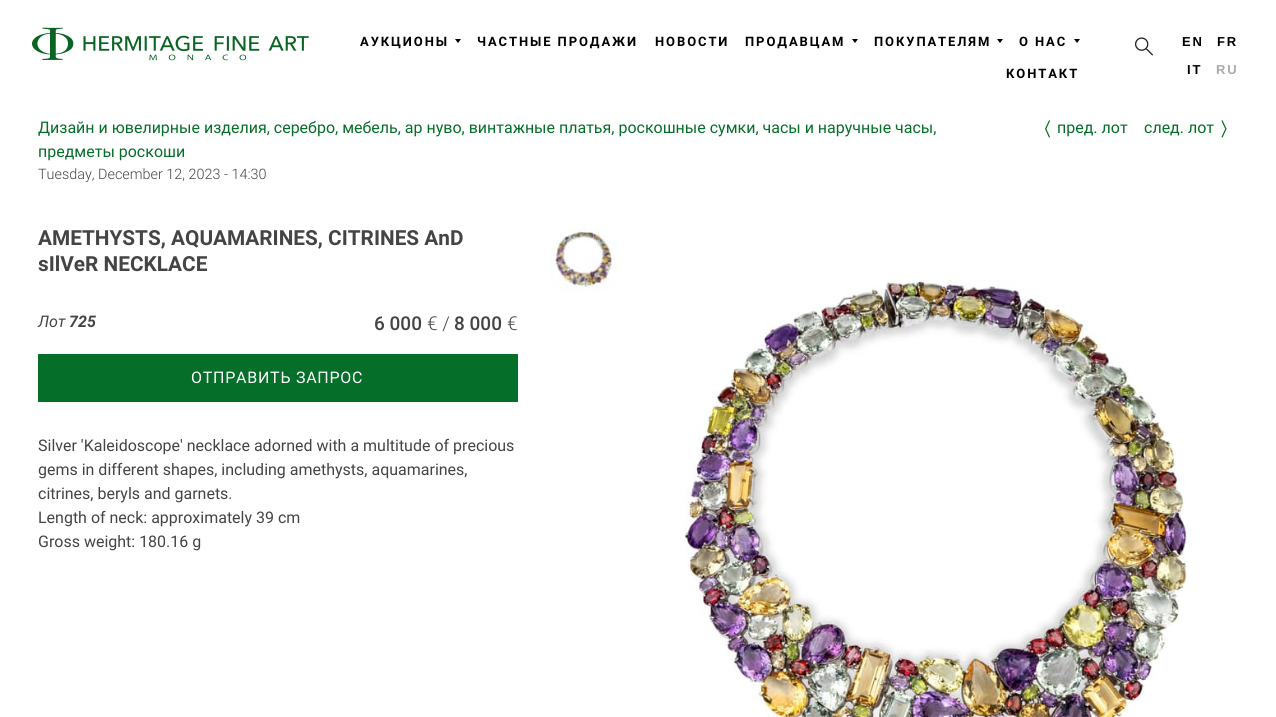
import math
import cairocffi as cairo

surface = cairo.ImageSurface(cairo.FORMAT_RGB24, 1276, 717)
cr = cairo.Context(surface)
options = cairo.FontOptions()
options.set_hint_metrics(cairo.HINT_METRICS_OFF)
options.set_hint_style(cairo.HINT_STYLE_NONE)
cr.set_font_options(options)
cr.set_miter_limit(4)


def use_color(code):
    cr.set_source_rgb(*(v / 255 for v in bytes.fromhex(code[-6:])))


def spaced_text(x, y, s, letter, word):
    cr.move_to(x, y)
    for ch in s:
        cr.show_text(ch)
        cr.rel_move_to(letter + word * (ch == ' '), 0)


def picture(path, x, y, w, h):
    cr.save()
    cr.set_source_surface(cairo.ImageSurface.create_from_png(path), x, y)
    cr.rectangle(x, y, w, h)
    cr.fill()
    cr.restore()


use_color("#ffffff")
cr.paint()
picture("img1.png", 32, 27, 277, 34)
cr.select_font_face("Roboto", cairo.FONT_SLANT_NORMAL, cairo.FONT_WEIGHT_BOLD)
cr.set_font_size(13)
use_color("#000000")
spaced_text(360, 46, "АУКЦИОНЫ", 1.9, 0)
cr.new_path()
cr.move_to(455, 39)
cr.line_to(461, 39)
cr.line_to(458, 43)
cr.close_path()
cr.fill()
spaced_text(477, 46, "ЧАСТНЫЕ ПРОДАЖИ", 1.9, 0)
spaced_text(655, 46, "НОВОСТИ", 1.9, 0)
spaced_text(745, 46, "ПРОДАВЦАМ", 1.9, 0)
cr.new_path()
cr.move_to(852, 39)
cr.line_to(858, 39)
cr.line_to(855, 43)
cr.close_path()
cr.fill()
spaced_text(874, 46, "ПОКУПАТЕЛЯМ", 1.9, 0)
cr.new_path()
cr.move_to(997, 39)
cr.line_to(1003, 39)
cr.line_to(1000, 43)
cr.close_path()
cr.fill()
spaced_text(1019, 46, "О НАС", 1.9, 0)
cr.new_path()
cr.move_to(1074, 39)
cr.line_to(1080, 39)
cr.line_to(1077, 43)
cr.close_path()
cr.fill()
spaced_text(1006, 78, "КОНТАКТ", 1.9, 0)
picture("img2.png", 1135, 37, 18, 19)
cr.select_font_face("Liberation Sans", cairo.FONT_SLANT_NORMAL, cairo.FONT_WEIGHT_BOLD)
spaced_text(1182, 46, "EN", 1.9, 0)
spaced_text(1217, 46, "FR", 1.9, 0)
spaced_text(1187, 74, "IT", 1.9, 0)
use_color("#aaaaaa")
spaced_text(1216, 74, "RU", 1.9, 0)
cr.select_font_face("Roboto")
cr.set_font_size(16)
use_color("#056f29")
cr.move_to(38, 133)
cr.show_text("Дизайн и ювелирные изделия, серебро, мебель, ар нуво, винтажные платья, роскошные сумки, часы и наручные часы,")
cr.move_to(38, 157)
cr.show_text("предметы роскоши")
cr.select_font_face("Roboto Light")
cr.set_font_size(14.4)
use_color("#444444")
cr.move_to(38, 179)
cr.show_text("Tuesday, December 12, 2023 - 14:30")
cr.select_font_face("WenQuanYi Zen Hei", cairo.FONT_SLANT_NORMAL, cairo.FONT_WEIGHT_BOLD)
cr.set_font_size(19)
use_color("#056f29")
cr.move_to(1033, 136)
cr.show_text("〈")
cr.select_font_face("Roboto")
cr.set_font_size(16)
cr.move_to(1057, 133)
cr.show_text("пред. лот")
cr.move_to(1144, 133)
cr.show_text("след. лот")
cr.select_font_face("WenQuanYi Zen Hei", cairo.FONT_SLANT_NORMAL, cairo.FONT_WEIGHT_BOLD)
cr.set_font_size(19)
cr.move_to(1219, 136)
cr.show_text("〉")
cr.select_font_face("Roboto", cairo.FONT_SLANT_NORMAL, cairo.FONT_WEIGHT_BOLD)
cr.set_font_size(20.8)
use_color("#444444")
cr.move_to(38, 245)
cr.show_text("AMETHYSTS, AQUAMARINES, CITRINES AnD")
cr.move_to(38, 271)
cr.show_text("sIlVeR NECKLACE")
picture("img3.png", 550, 226, 67, 66)
picture("img4.png", 684, 279, 503, 438)
cr.select_font_face("Roboto", cairo.FONT_SLANT_ITALIC)
cr.set_font_size(16)
cr.move_to(38, 327)
cr.show_text("Лот")
cr.select_font_face("Roboto", cairo.FONT_SLANT_ITALIC, cairo.FONT_WEIGHT_BOLD)
cr.move_to(69, 327)
cr.show_text("725")
cr.select_font_face("Roboto Medium")
cr.set_font_size(19)
cr.move_to(374, 330)
cr.show_text("6 000")
cr.select_font_face("Roboto Light")
cr.move_to(427, 330)
cr.show_text("€ /")
cr.select_font_face("Roboto Medium")
cr.move_to(454, 330)
cr.show_text("8 000")
cr.select_font_face("Roboto Light")
cr.move_to(507, 330)
cr.show_text("€")
use_color("#056f29")
cr.rectangle(38, 354, 480, 48)
cr.fill()
cr.select_font_face("Roboto")
cr.set_font_size(16)
use_color("#ffffff")
spaced_text(191, 383, "ОТПРАВИТЬ ЗАПРОС", 0.75, 0)
use_color("#444444")
cr.move_to(38, 451)
cr.show_text("Silver 'Kaleidoscope' necklace adorned with a multitude of precious")
cr.move_to(38, 475)
cr.show_text("gems in different shapes, including amethysts, aquamarines,")
cr.move_to(38, 499)
cr.show_text("citrines, beryls and garnets.")
cr.move_to(38, 523)
cr.show_text("Length of neck: approximately 39 cm")
cr.move_to(38, 547)
cr.show_text("Gross weight: 180.16 g")
surface.write_to_png("result.png")
